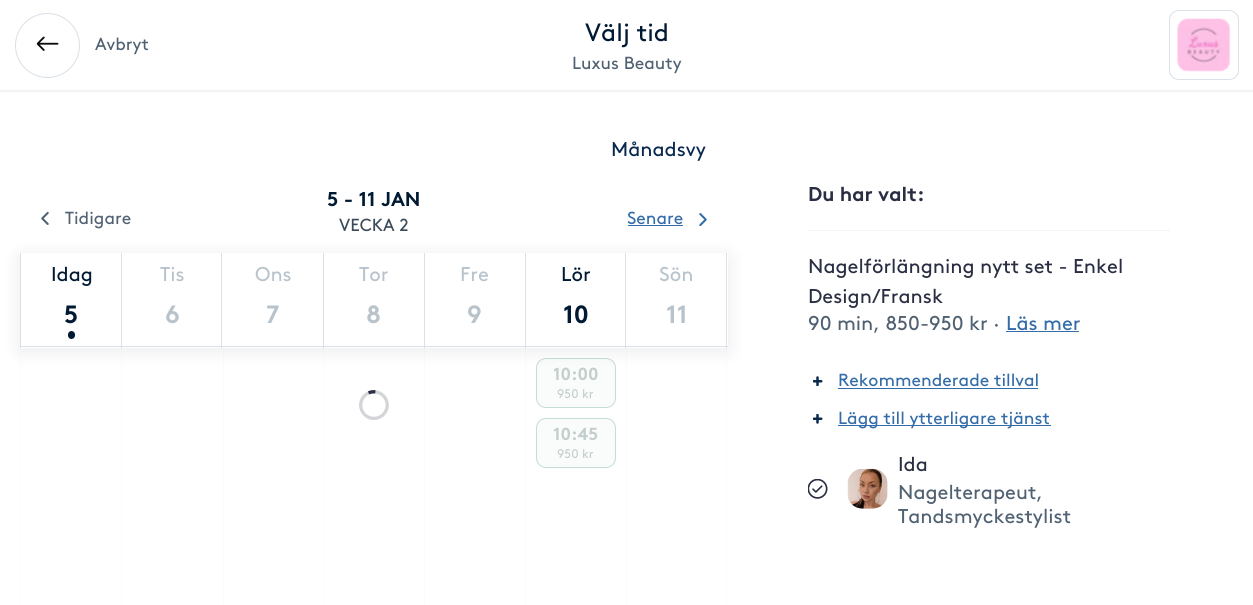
import math
import cairocffi as cairo

surface = cairo.ImageSurface(cairo.FORMAT_RGB24, 1253, 605)
cr = cairo.Context(surface)
options = cairo.FontOptions()
options.set_hint_metrics(cairo.HINT_METRICS_OFF)
options.set_hint_style(cairo.HINT_STYLE_NONE)
cr.set_font_options(options)
cr.set_miter_limit(4)


def use_color(code):
    cr.set_source_rgb(*(v / 255 for v in bytes.fromhex(code[-6:])))


def round_rect(x, y, w, h, r):
    cr.new_sub_path()
    for i, (u, v) in enumerate([(x + w - r, y + h - r), (x + r, y + h - r), (x + r, y + r), (x + w - r, y + r)]):
        cr.arc(u, v, r, i * math.pi / 2, (i + 1) * math.pi / 2)
    cr.close_path()


def shadow(x, y, w, h, r, blur, alpha):
    cr.push_group_with_content(cairo.CONTENT_ALPHA)
    cr.set_operator(cairo.OPERATOR_SOURCE)
    for i in range(15, -16, -2):
        e = blur * i / 6
        if min(w, h) + 2 * e > 0:
            cr.set_source_rgba(0, 0, 0, alpha * math.erfc((i - 1) / 8.5) / 2)
            round_rect(x - e, y - e, w + 2 * e, h + 2 * e, max(0, min(r + e + blur * .6, min(w, h) / 2 + e)))
            cr.fill()
    cr.mask(cr.pop_group())


def picture(path, x, y, w, h):
    cr.save()
    cr.set_source_surface(cairo.ImageSurface.create_from_png(path), x, y)
    cr.rectangle(x, y, w, h)
    cr.fill()
    cr.restore()


use_color("#ffffff")
cr.paint()
cr.save()
cr.rectangle(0, 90, 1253, 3)
cr.clip()
use_color("#001a33")
shadow(0, 1, 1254, 90, 0, 2, 0.1)
cr.restore()
cr.arc(47.5, 45.5, 32, 0, 2 * math.pi)
use_color("#d9e0e7")
cr.set_line_width(1)
cr.stroke()
picture("img1.png", 36, 36, 23, 15)
cr.select_font_face("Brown")
cr.set_font_size(17.5)
use_color("#506172")
cr.move_to(95, 50)
cr.show_text("Avbryt")
cr.set_font_size(25)
use_color("#001a33")
cr.move_to(585, 41)
cr.show_text("Välj tid")
cr.set_font_size(17.5)
use_color("#506172")
cr.move_to(572, 69)
cr.show_text("Luxus Beauty")
round_rect(1169.5, 10.5, 69, 69, 9.5)
use_color("#d9e0e7")
cr.stroke()
picture("img2.png", 1177, 18, 54, 54)
cr.set_font_size(20)
use_color("#092a4e")
cr.move_to(611, 156)
cr.show_text("Månadsvy")
cr.select_font_face("Brown", cairo.FONT_SLANT_NORMAL, cairo.FONT_WEIGHT_BOLD)
use_color("#001a33")
cr.move_to(327, 206)
cr.show_text("5 - 11 JAN")
cr.select_font_face("Brown")
cr.set_font_size(17.5)
use_color("#3b4a58")
cr.move_to(339, 231)
cr.show_text("VECKA 2")
use_color("#f9fbfc")
cr.rectangle(20, 348, 1, 257)
cr.fill()
cr.rectangle(121, 348, 1, 257)
cr.fill()
cr.rectangle(223, 348, 1, 257)
cr.fill()
cr.rectangle(323, 348, 1, 257)
cr.fill()
cr.rectangle(424, 348, 1, 257)
cr.fill()
cr.rectangle(525, 348, 1, 257)
cr.fill()
use_color("#f9fcfb")
round_rect(536.5, 358.5, 79, 49, 9.5)
cr.fill_preserve()
use_color("#c5dcd7")
cr.stroke()
use_color("#f9fbfc")
cr.rectangle(726, 348, 1, 257)
cr.fill()
cr.rectangle(626, 348, 1, 257)
cr.fill()
use_color("#000000")
shadow(20, 256, 708, 95, 0, 10, 0.08)
use_color("#ffffff")
cr.rectangle(21, 253, 707, 95)
cr.fill()
picture("img3.png", 41, 211, 8, 14)
use_color("#506172")
cr.move_to(65, 224)
cr.show_text("Tidigare")
use_color("#336ca8")
cr.move_to(627, 224)
cr.show_text("Senare")
cr.rectangle(628, 225, 55, 1)
cr.fill()
picture("img4.png", 699, 213, 8, 13)
use_color("#d9e0e7")
cr.rectangle(20, 346, 605, 1)
cr.fill()
cr.rectangle(20, 253, 1, 95)
cr.fill()
cr.set_font_size(20)
use_color("#001a33")
cr.move_to(51, 281)
cr.show_text("Idag")
cr.select_font_face("Brown", cairo.FONT_SLANT_NORMAL, cairo.FONT_WEIGHT_BOLD)
cr.set_font_size(25)
cr.move_to(64, 323)
cr.show_text("5")
round_rect(68, 331, 7, 8, 3.5)
cr.fill()
use_color("#d9e0e7")
cr.rectangle(121, 253, 1, 95)
cr.fill()
cr.select_font_face("Brown")
cr.set_font_size(20)
use_color("#b8c3cc")
cr.move_to(160, 281)
cr.show_text("Tis")
cr.select_font_face("Brown", cairo.FONT_SLANT_NORMAL, cairo.FONT_WEIGHT_BOLD)
cr.set_font_size(25)
cr.move_to(165, 323)
cr.show_text("6")
use_color("#d9e0e7")
cr.rectangle(221, 253, 1, 95)
cr.fill()
cr.select_font_face("Brown")
cr.set_font_size(20)
use_color("#b8c3cc")
cr.move_to(255, 281)
cr.show_text("Ons")
cr.select_font_face("Brown", cairo.FONT_SLANT_NORMAL, cairo.FONT_WEIGHT_BOLD)
cr.set_font_size(25)
cr.move_to(266, 323)
cr.show_text("7")
use_color("#d9e0e7")
cr.rectangle(323, 253, 1, 95)
cr.fill()
cr.select_font_face("Brown")
cr.set_font_size(20)
use_color("#b8c3cc")
cr.move_to(359, 281)
cr.show_text("Tor")
cr.select_font_face("Brown", cairo.FONT_SLANT_NORMAL, cairo.FONT_WEIGHT_BOLD)
cr.set_font_size(25)
cr.move_to(366, 323)
cr.show_text("8")
use_color("#d9e0e7")
cr.rectangle(424, 253, 1, 95)
cr.fill()
cr.select_font_face("Brown")
cr.set_font_size(20)
use_color("#b8c3cc")
cr.move_to(460, 281)
cr.show_text("Fre")
cr.select_font_face("Brown", cairo.FONT_SLANT_NORMAL, cairo.FONT_WEIGHT_BOLD)
cr.set_font_size(25)
cr.move_to(467, 323)
cr.show_text("9")
use_color("#d9e0e7")
cr.rectangle(525, 253, 1, 95)
cr.fill()
cr.select_font_face("Brown")
cr.set_font_size(20)
use_color("#001a33")
cr.move_to(561, 281)
cr.show_text("Lör")
cr.select_font_face("Brown", cairo.FONT_SLANT_NORMAL, cairo.FONT_WEIGHT_BOLD)
cr.set_font_size(25)
cr.move_to(563, 323)
cr.show_text("10")
use_color("#d9e0e7")
cr.rectangle(726, 253, 1, 95)
cr.fill()
cr.rectangle(625, 346, 103, 1)
cr.fill()
cr.rectangle(625, 253, 1, 95)
cr.fill()
cr.select_font_face("Brown")
cr.set_font_size(20)
use_color("#b8c3cc")
cr.move_to(659, 281)
cr.show_text("Sön")
cr.select_font_face("Brown", cairo.FONT_SLANT_NORMAL, cairo.FONT_WEIGHT_BOLD)
cr.set_font_size(25)
cr.move_to(666, 323)
cr.show_text("11")
picture("img5.png", 359, 390, 30, 30)
cr.set_font_size(17.5)
use_color("#c3cfcd")
cr.move_to(553, 380)
cr.show_text("10:00")
cr.select_font_face("Brown")
cr.set_font_size(12.5)
cr.move_to(557, 398)
cr.show_text("950 kr")
use_color("#f9fcfb")
round_rect(536.5, 418.5, 79, 49, 9.5)
cr.fill_preserve()
use_color("#c5dcd7")
cr.stroke()
cr.select_font_face("Brown", cairo.FONT_SLANT_NORMAL, cairo.FONT_WEIGHT_BOLD)
cr.set_font_size(17.5)
use_color("#c3cfcd")
cr.move_to(553, 440)
cr.show_text("10:45")
cr.select_font_face("Brown")
cr.set_font_size(12.5)
cr.move_to(557, 458)
cr.show_text("950 kr")
use_color("#f4f4f6")
cr.rectangle(808, 230, 362, 1)
cr.fill()
cr.select_font_face("Brown", cairo.FONT_SLANT_NORMAL, cairo.FONT_WEIGHT_BOLD)
cr.set_font_size(20)
use_color("#2a2e43")
cr.move_to(808, 201)
cr.show_text("Du har valt:")
cr.select_font_face("Brown")
cr.move_to(808, 273)
cr.show_text("Nagelförlängning nytt set - Enkel")
cr.move_to(808, 303)
cr.show_text("Design/Fransk")
use_color("#506172")
cr.move_to(808, 330)
cr.show_text("90 min, 850-950 kr ·")
use_color("#336ca8")
cr.move_to(1006, 330)
cr.show_text("Läs mer")
cr.rectangle(1006, 331, 73, 1)
cr.fill()
picture("img6.png", 813, 376, 10, 10)
cr.set_font_size(17.5)
cr.move_to(838, 386)
cr.show_text("Rekommenderade tillval")
cr.rectangle(838, 388, 200, 1)
cr.fill()
picture("img7.png", 813, 414, 10, 10)
cr.rectangle(838, 425, 213, 1)
cr.fill()
cr.move_to(838, 424)
cr.show_text("Lägg till ytterligare tjänst")
picture("img8.png", 808, 479, 20, 20)
use_color("#f2f7fa")
round_rect(848, 469, 40, 40, 15)
cr.fill()
picture("img9.png", 847, 468, 41, 41)
cr.set_font_size(20)
use_color("#2a2e43")
cr.move_to(898, 471)
cr.show_text("Ida")
use_color("#506172")
cr.move_to(898, 499)
cr.show_text("Nagelterapeut,")
cr.move_to(898, 523)
cr.show_text("Tandsmyckestylist")
surface.write_to_png("result.png")
